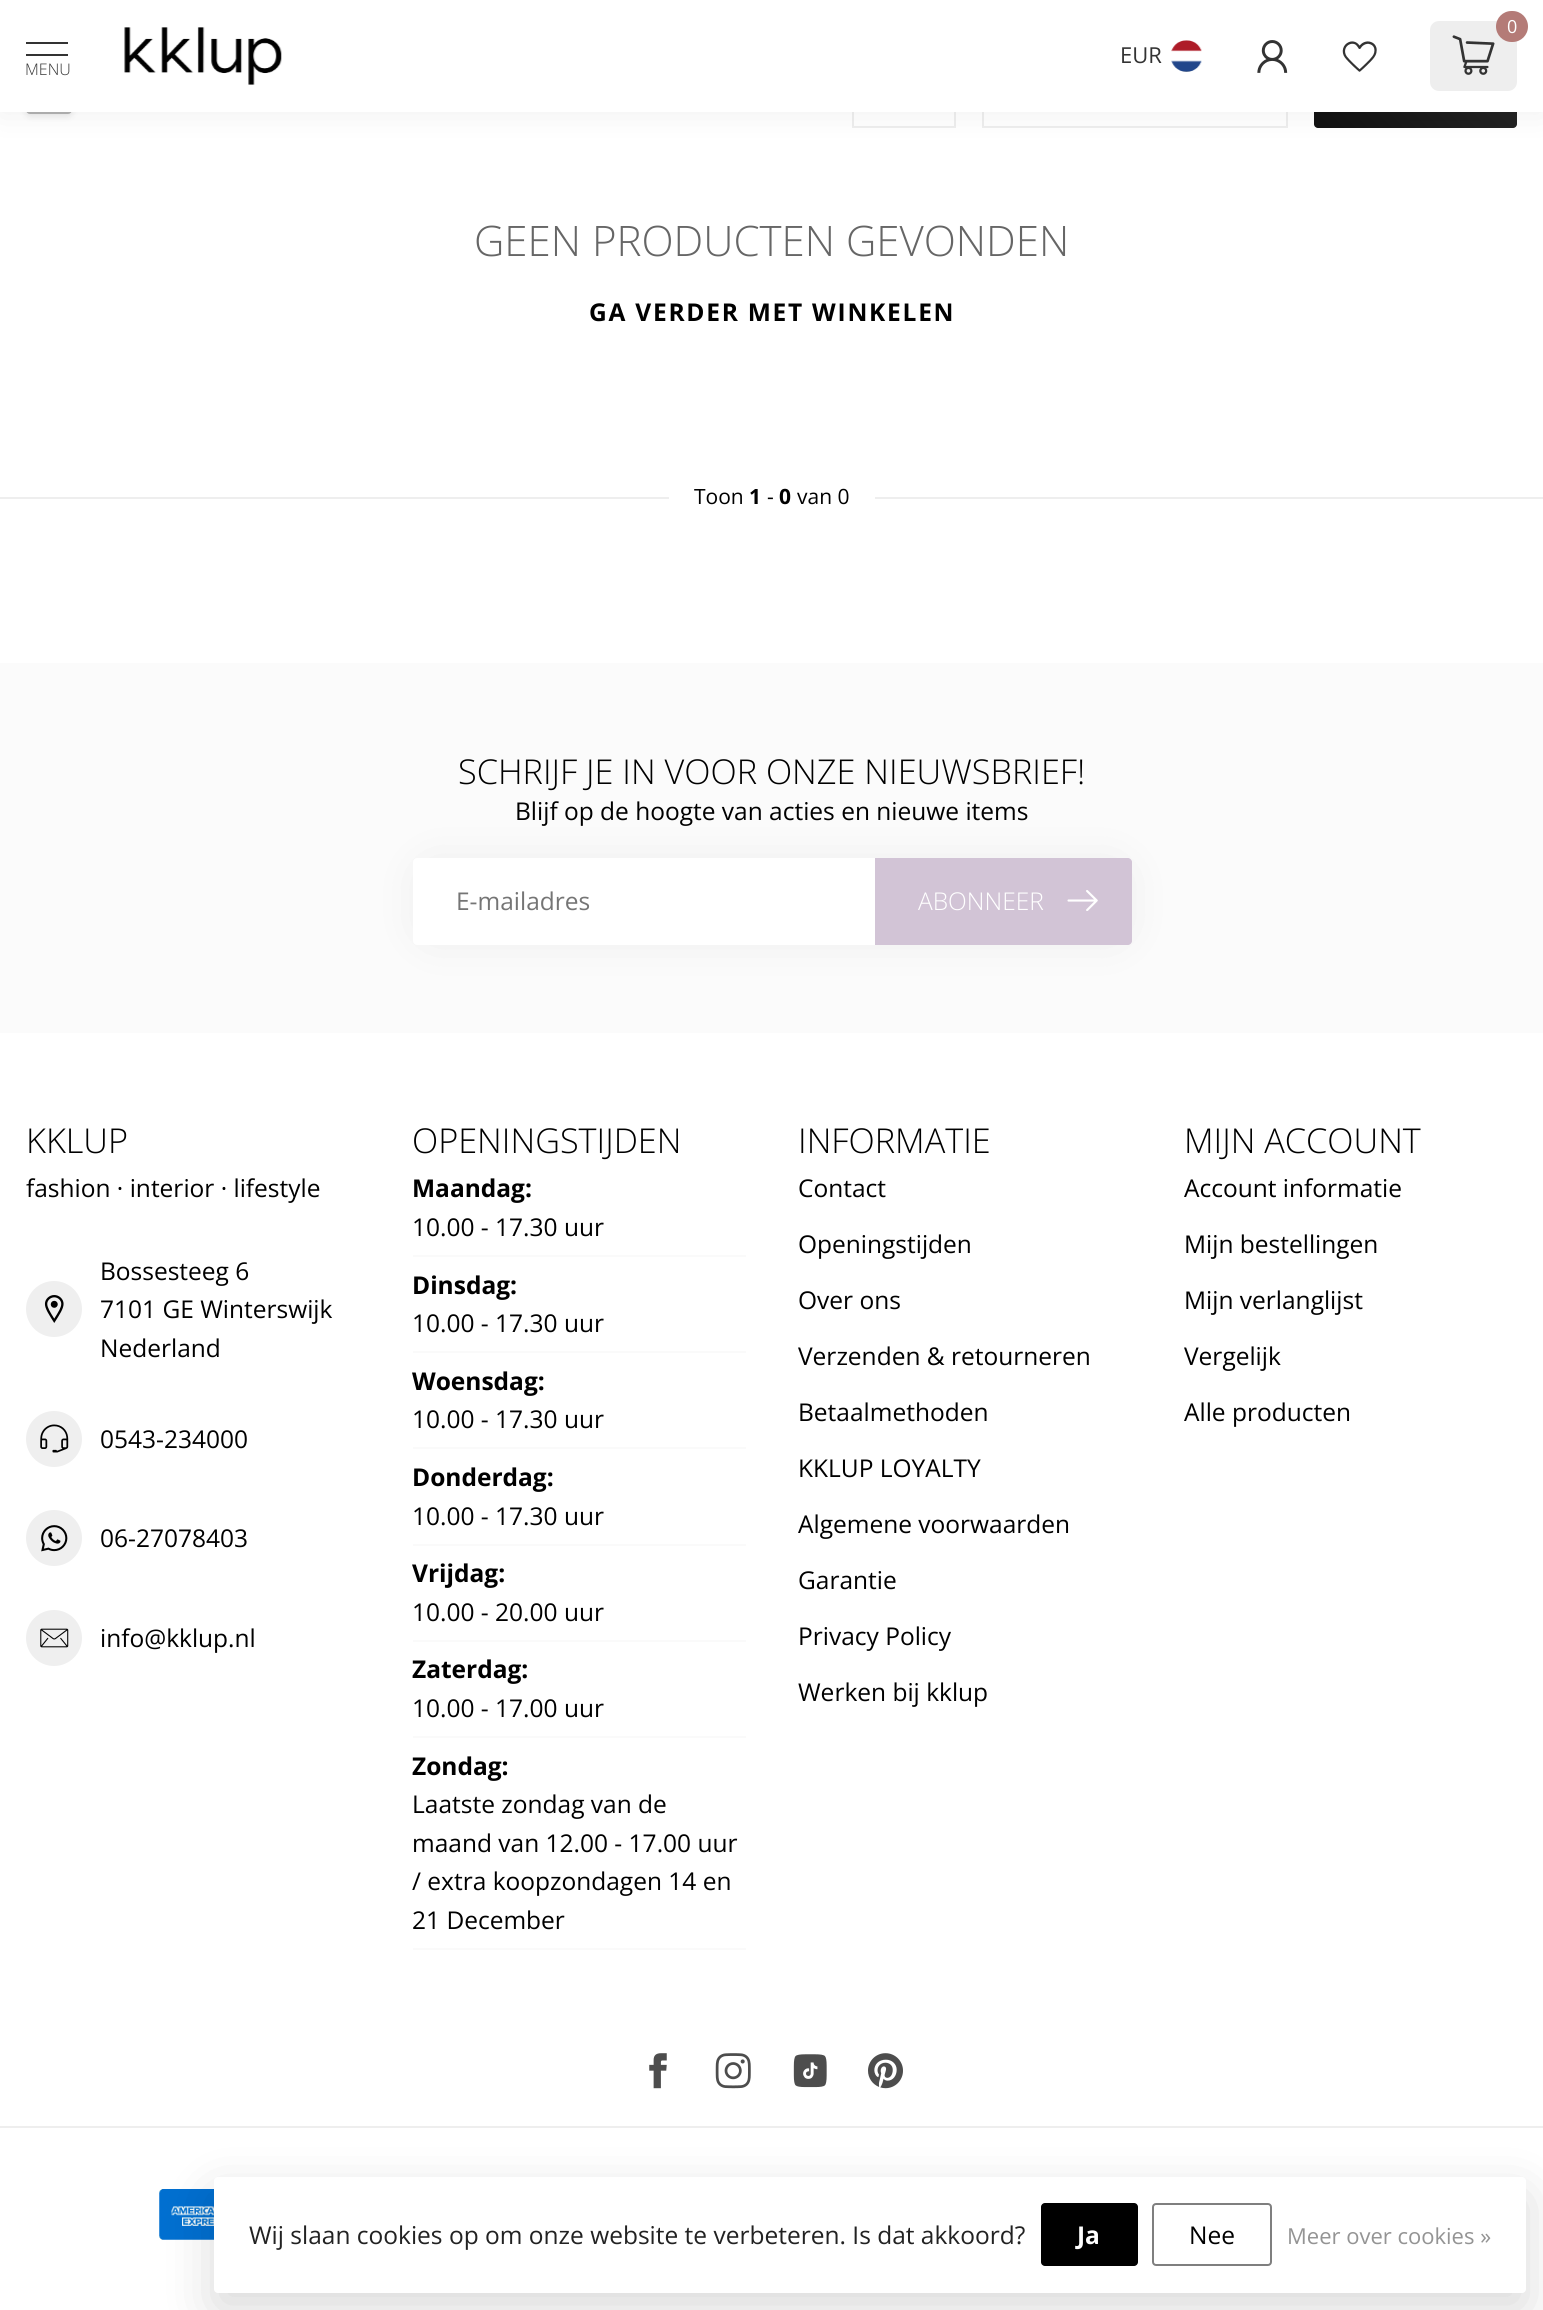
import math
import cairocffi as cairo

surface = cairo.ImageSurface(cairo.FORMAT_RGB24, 1543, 2310)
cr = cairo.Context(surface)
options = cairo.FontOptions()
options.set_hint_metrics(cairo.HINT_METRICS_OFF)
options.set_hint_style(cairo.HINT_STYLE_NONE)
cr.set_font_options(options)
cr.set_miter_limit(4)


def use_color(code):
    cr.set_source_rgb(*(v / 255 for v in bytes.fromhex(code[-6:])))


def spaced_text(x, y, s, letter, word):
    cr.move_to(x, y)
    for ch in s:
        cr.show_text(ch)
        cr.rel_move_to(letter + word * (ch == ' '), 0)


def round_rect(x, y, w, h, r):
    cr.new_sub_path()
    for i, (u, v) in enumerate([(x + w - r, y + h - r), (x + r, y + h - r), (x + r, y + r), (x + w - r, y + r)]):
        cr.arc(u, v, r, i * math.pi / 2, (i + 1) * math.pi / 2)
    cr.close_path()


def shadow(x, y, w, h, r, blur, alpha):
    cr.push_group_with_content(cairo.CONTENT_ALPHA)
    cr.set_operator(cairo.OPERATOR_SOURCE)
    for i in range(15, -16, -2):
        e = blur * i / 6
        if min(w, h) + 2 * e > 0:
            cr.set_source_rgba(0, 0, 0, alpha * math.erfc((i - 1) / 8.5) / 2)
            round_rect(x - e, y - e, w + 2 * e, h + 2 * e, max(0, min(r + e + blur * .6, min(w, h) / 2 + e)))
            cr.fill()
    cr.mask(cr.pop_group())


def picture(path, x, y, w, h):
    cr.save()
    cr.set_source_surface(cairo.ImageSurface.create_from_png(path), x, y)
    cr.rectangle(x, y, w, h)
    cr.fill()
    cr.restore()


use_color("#ffffff")
cr.paint()
use_color("#000000")
shadow(26, 70, 46, 46, 4, 3.5, 0.1)
round_rect(27, 69, 44, 44, 3)
use_color("#b2b2b2")
cr.stroke()
cr.rectangle(853, 55, 102, 72)
use_color("#eeeeee")
cr.stroke()
cr.rectangle(983, 55, 304, 72)
cr.stroke()
gradient = cairo.LinearGradient(1347, 160, 1485, 22)
gradient.add_color_stop_rgba(0, 0.067, 0.067, 0.067, 1)
gradient.add_color_stop_rgba(1, 0.157, 0.157, 0.157, 1)
cr.set_source(gradient)
round_rect(1314, 54, 203, 74, 4)
cr.fill()
use_color("#000000")
shadow(0, -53, 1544, 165, 0, 17.5, 0.07)
use_color("#ffffff")
cr.rectangle(0, 0, 1543, 112)
cr.fill()
use_color("#eeeeee")
round_rect(1430, 21, 87, 70, 9)
cr.fill()
use_color("#b47b77")
round_rect(1496, 11, 32, 31, 15.5)
cr.fill()
cr.select_font_face("Open Sans")
cr.set_font_size(18)
use_color("#ffffff")
cr.move_to(1507, 33)
cr.show_text("0")
picture("img1.png", 1452, 35, 43, 40)
cr.set_font_size(22)
use_color("#333333")
cr.move_to(1120, 63)
cr.show_text("EUR")
picture("img2.png", 1171, 40, 31, 32)
picture("img3.png", 1257, 40, 31, 33)
picture("img4.png", 1342, 41, 35, 31)
cr.rectangle(26, 42, 42, 2)
cr.fill()
cr.rectangle(26, 54, 42, 2)
cr.fill()
cr.select_font_face("Open Sans Light")
cr.set_font_size(16)
cr.move_to(25, 75)
cr.show_text("MENU")
picture("img5.png", 124, 27, 158, 58)
cr.set_font_size(42)
use_color("#666666")
cr.move_to(474, 256)
cr.show_text("GEEN PRODUCTEN GEVONDEN")
cr.select_font_face("Open Sans", cairo.FONT_SLANT_NORMAL, cairo.FONT_WEIGHT_BOLD)
cr.set_font_size(24.5)
use_color("#000000")
spaced_text(589, 321, "GA VERDER MET WINKELEN", 1.75, 0)
use_color("#eeeeee")
cr.rectangle(0, 497, 1543, 2)
cr.fill()
use_color("#ffffff")
cr.rectangle(669, 497, 206, 2)
cr.fill()
cr.select_font_face("Open Sans")
cr.set_font_size(21)
use_color("#000000")
cr.move_to(694, 504)
cr.show_text("Toon")
cr.select_font_face("Open Sans", cairo.FONT_SLANT_NORMAL, cairo.FONT_WEIGHT_BOLD)
cr.move_to(749, 504)
cr.show_text("1")
cr.move_to(779, 504)
cr.show_text("0")
cr.select_font_face("Open Sans")
cr.move_to(797, 504)
cr.show_text("van 0")
cr.move_to(767, 504)
cr.show_text("-")
use_color("#fbfbfb")
cr.rectangle(0, 663, 1543, 370)
cr.fill()
cr.select_font_face("Open Sans Light")
cr.set_font_size(34.25)
use_color("#000000")
cr.move_to(458, 784)
cr.show_text("SCHRIJF JE IN VOOR ONZE NIEUWSBRIEF!")
use_color("#000000")
shadow(431, 875, 684, 53, 0, 26, 0.1)
cr.select_font_face("Open Sans")
cr.set_font_size(24.5)
use_color("#000000")
cr.move_to(515, 820)
cr.show_text("Blijf op de hoogte van acties en nieuwe items")
use_color("#ffffff")
cr.new_path()
cr.move_to(417, 858)
cr.line_to(875, 858)
cr.line_to(875, 945)
cr.line_to(417, 945)
cr.curve_to(415, 945, 413, 943, 413, 941)
cr.line_to(413, 862)
cr.curve_to(413, 860, 415, 858, 417, 858)
cr.close_path()
cr.fill()
use_color("#757575")
cr.move_to(456, 910)
cr.show_text("E-mailadres")
use_color("#d2c4d6")
cr.new_path()
cr.move_to(875, 858)
cr.line_to(1128, 858)
cr.curve_to(1130, 858, 1132, 860, 1132, 862)
cr.line_to(1132, 941)
cr.curve_to(1132, 943, 1130, 945, 1128, 945)
cr.line_to(875, 945)
cr.close_path()
cr.fill()
cr.select_font_face("Open Sans Light")
use_color("#ffffff")
cr.move_to(918, 910)
cr.show_text("ABONNEER")
picture("img6.png", 1067, 890, 31, 21)
cr.set_font_size(34.25)
use_color("#000000")
cr.move_to(26, 1153)
cr.show_text("KKLUP")
cr.select_font_face("Open Sans")
cr.set_font_size(24.5)
cr.move_to(26, 1197)
cr.show_text("fashion · interior · lifestyle")
use_color("#efefef")
cr.new_path()
cr.arc(54, 1309, 28, 0, 2 * math.pi)
cr.fill()
picture("img7.png", 44, 1295, 20, 28)
use_color("#000000")
cr.move_to(100, 1280)
cr.show_text("Bossesteeg 6")
cr.move_to(100, 1318)
cr.show_text("7101 GE Winterswijk")
cr.move_to(100, 1357)
cr.show_text("Nederland")
use_color("#efefef")
cr.new_path()
cr.arc(54, 1439, 28, 0, 2 * math.pi)
cr.fill()
picture("img8.png", 40, 1424, 29, 29)
use_color("#000000")
cr.move_to(100, 1448)
cr.show_text("0543-234000")
use_color("#efefef")
cr.new_path()
cr.arc(54, 1538, 28, 0, 2 * math.pi)
cr.fill()
picture("img9.png", 41, 1525, 27, 27)
use_color("#000000")
cr.move_to(100, 1547)
cr.show_text("06-27078403")
use_color("#efefef")
cr.new_path()
cr.arc(54, 1638, 28, 0, 2 * math.pi)
cr.fill()
picture("img10.png", 40, 1628, 29, 20)
use_color("#000000")
cr.move_to(100, 1647)
cr.show_text("info@kklup.nl")
cr.select_font_face("Open Sans Light")
cr.set_font_size(34.25)
cr.move_to(412, 1153)
cr.show_text("OPENINGSTIJDEN")
use_color("#fafafa")
cr.rectangle(413, 1255, 333, 2)
cr.fill()
cr.select_font_face("Open Sans", cairo.FONT_SLANT_NORMAL, cairo.FONT_WEIGHT_BOLD)
cr.set_font_size(24.5)
use_color("#000000")
cr.move_to(412, 1197)
cr.show_text("Maandag:")
cr.select_font_face("Open Sans")
cr.move_to(412, 1236)
cr.show_text("10.00 - 17.30 uur")
use_color("#fafafa")
cr.rectangle(413, 1351, 333, 2)
cr.fill()
cr.select_font_face("Open Sans", cairo.FONT_SLANT_NORMAL, cairo.FONT_WEIGHT_BOLD)
use_color("#000000")
cr.move_to(412, 1294)
cr.show_text("Dinsdag:")
cr.select_font_face("Open Sans")
cr.move_to(412, 1332)
cr.show_text("10.00 - 17.30 uur")
use_color("#fafafa")
cr.rectangle(413, 1447, 333, 2)
cr.fill()
cr.select_font_face("Open Sans", cairo.FONT_SLANT_NORMAL, cairo.FONT_WEIGHT_BOLD)
use_color("#000000")
cr.move_to(412, 1390)
cr.show_text("Woensdag:")
cr.select_font_face("Open Sans")
cr.move_to(412, 1428)
cr.show_text("10.00 - 17.30 uur")
use_color("#fafafa")
cr.rectangle(413, 1544, 333, 2)
cr.fill()
cr.select_font_face("Open Sans", cairo.FONT_SLANT_NORMAL, cairo.FONT_WEIGHT_BOLD)
use_color("#000000")
cr.move_to(412, 1486)
cr.show_text("Donderdag:")
cr.select_font_face("Open Sans")
cr.move_to(412, 1525)
cr.show_text("10.00 - 17.30 uur")
use_color("#fafafa")
cr.rectangle(413, 1640, 333, 2)
cr.fill()
cr.select_font_face("Open Sans", cairo.FONT_SLANT_NORMAL, cairo.FONT_WEIGHT_BOLD)
use_color("#000000")
cr.move_to(412, 1582)
cr.show_text("Vrijdag:")
cr.select_font_face("Open Sans")
cr.move_to(412, 1621)
cr.show_text("10.00 - 20.00 uur")
use_color("#fafafa")
cr.rectangle(413, 1736, 333, 2)
cr.fill()
cr.select_font_face("Open Sans", cairo.FONT_SLANT_NORMAL, cairo.FONT_WEIGHT_BOLD)
use_color("#000000")
cr.move_to(412, 1678)
cr.show_text("Zaterdag:")
cr.select_font_face("Open Sans")
cr.move_to(412, 1717)
cr.show_text("10.00 - 17.00 uur")
use_color("#fafafa")
cr.rectangle(413, 1948, 333, 2)
cr.fill()
cr.select_font_face("Open Sans", cairo.FONT_SLANT_NORMAL, cairo.FONT_WEIGHT_BOLD)
use_color("#000000")
cr.move_to(412, 1775)
cr.show_text("Zondag:")
cr.select_font_face("Open Sans")
cr.move_to(412, 1813)
cr.show_text("Laatste zondag van de")
cr.move_to(412, 1852)
cr.show_text("maand van 12.00 - 17.00 uur")
cr.move_to(412, 1890)
cr.show_text("/ extra koopzondagen 14 en")
cr.move_to(412, 1929)
cr.show_text("21 December")
cr.select_font_face("Open Sans Light")
cr.set_font_size(34.25)
cr.move_to(798, 1153)
cr.show_text("INFORMATIE")
cr.select_font_face("Open Sans")
cr.set_font_size(24.5)
cr.move_to(798, 1197)
cr.show_text("Contact")
cr.move_to(798, 1253)
cr.show_text("Openingstijden")
cr.move_to(798, 1309)
cr.show_text("Over ons")
cr.move_to(798, 1365)
cr.show_text("Verzenden & retourneren")
cr.move_to(798, 1421)
cr.show_text("Betaalmethoden")
cr.move_to(798, 1477)
cr.show_text("KKLUP LOYALTY")
cr.move_to(798, 1533)
cr.show_text("Algemene voorwaarden")
cr.move_to(798, 1589)
cr.show_text("Garantie")
cr.move_to(798, 1645)
cr.show_text("Privacy Policy")
cr.move_to(798, 1701)
cr.show_text("Werken bij kklup")
cr.select_font_face("Open Sans Light")
cr.set_font_size(34.25)
cr.move_to(1184, 1153)
cr.show_text("MIJN ACCOUNT")
cr.select_font_face("Open Sans")
cr.set_font_size(24.5)
cr.move_to(1184, 1197)
cr.show_text("Account informatie")
cr.move_to(1184, 1253)
cr.show_text("Mijn bestellingen")
cr.move_to(1184, 1309)
cr.show_text("Mijn verlanglijst")
cr.move_to(1184, 1365)
cr.show_text("Vergelijk")
cr.move_to(1184, 1421)
cr.show_text("Alle producten")
picture("img11.png", 649, 2053, 18, 36)
picture("img12.png", 715, 2053, 36, 36)
picture("img13.png", 793, 2054, 34, 34)
picture("img14.png", 868, 2053, 35, 36)
use_color("#eeeeee")
cr.rectangle(0, 2126, 1543, 2)
cr.fill()
picture("img15.png", 159, 2189, 55, 51)
use_color("#000000")
shadow(214, 2195, 1312, 115, 4, 26, 0.15)
use_color("#ffffff")
round_rect(214, 2177, 1312, 116, 4)
cr.fill()
use_color("#222222")
cr.move_to(249, 2244)
cr.show_text("Wij slaan cookies op om onze website te verbeteren. Is dat akkoord?")
use_color("#000000")
round_rect(1041, 2203, 97, 63, 4)
cr.fill()
cr.select_font_face("Open Sans", cairo.FONT_SLANT_NORMAL, cairo.FONT_WEIGHT_BOLD)
use_color("#ffffff")
cr.move_to(1077, 2244)
cr.show_text("Ja")
round_rect(1153, 2204, 118, 61, 3)
use_color("#7f7f7f")
cr.stroke()
cr.select_font_face("Open Sans")
use_color("#000000")
cr.move_to(1189, 2244)
cr.show_text("Nee")
cr.set_font_size(22)
use_color("#949494")
cr.move_to(1287, 2244)
cr.show_text("Meer over cookies »")
surface.write_to_png("result.png")
